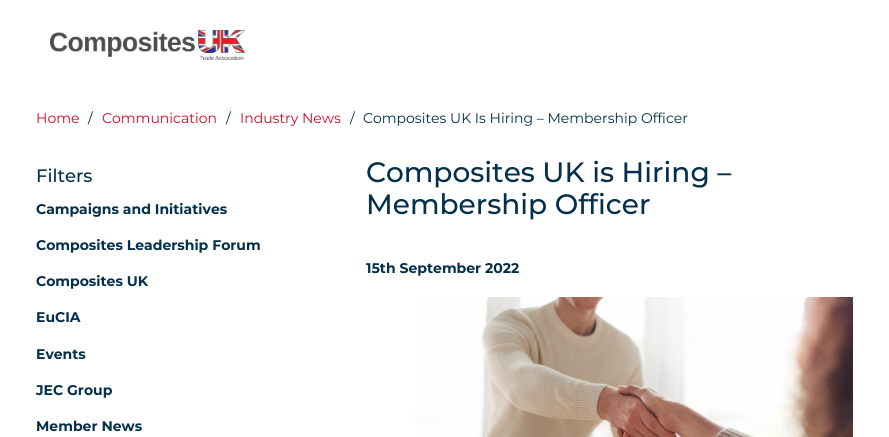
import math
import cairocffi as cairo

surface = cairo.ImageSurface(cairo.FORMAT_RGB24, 889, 437)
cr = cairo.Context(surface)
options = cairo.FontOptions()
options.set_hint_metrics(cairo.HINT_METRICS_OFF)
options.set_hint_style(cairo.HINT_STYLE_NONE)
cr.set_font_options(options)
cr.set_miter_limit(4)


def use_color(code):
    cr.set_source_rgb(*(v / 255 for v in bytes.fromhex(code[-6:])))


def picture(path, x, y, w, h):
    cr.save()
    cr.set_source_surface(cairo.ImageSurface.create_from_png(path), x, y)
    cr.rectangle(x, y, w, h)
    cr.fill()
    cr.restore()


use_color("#ffffff")
cr.paint()
picture("img1.png", 50, 30, 195, 30)
cr.select_font_face("Montserrat")
cr.set_font_size(14)
use_color("#d70826")
cr.move_to(36, 123)
cr.show_text("Home")
use_color("#032f4a")
cr.move_to(88, 123)
cr.show_text("/")
use_color("#d70826")
cr.move_to(102, 123)
cr.show_text("Communication")
use_color("#032f4a")
cr.move_to(226, 123)
cr.show_text("/")
use_color("#d70826")
cr.move_to(240, 123)
cr.show_text("Industry News")
use_color("#032f4a")
cr.move_to(350, 123)
cr.show_text("/")
cr.move_to(363, 123)
cr.show_text("Composites UK Is Hiring – Membership Officer")
cr.select_font_face("Montserrat Medium")
cr.set_font_size(18)
cr.move_to(36, 182)
cr.show_text("Filters")
cr.select_font_face("Montserrat", cairo.FONT_SLANT_NORMAL, cairo.FONT_WEIGHT_BOLD)
cr.set_font_size(14)
cr.move_to(36, 214)
cr.show_text("Campaigns and Initiatives")
cr.move_to(36, 250)
cr.show_text("Composites Leadership Forum")
cr.move_to(36, 286)
cr.show_text("Composites UK")
cr.move_to(36, 322)
cr.show_text("EuCIA")
cr.move_to(36, 359)
cr.show_text("Events")
cr.move_to(36, 395)
cr.show_text("JEC Group")
cr.move_to(36, 431)
cr.show_text("Member News")
cr.select_font_face("Montserrat Medium")
cr.set_font_size(28)
cr.move_to(366, 182)
cr.show_text("Composites UK is Hiring –")
cr.move_to(366, 214)
cr.show_text("Membership Officer")
cr.select_font_face("Montserrat", cairo.FONT_SLANT_NORMAL, cairo.FONT_WEIGHT_BOLD)
cr.set_font_size(14)
cr.move_to(366, 273)
cr.show_text("15th September 2022")
picture("img2.png", 415, 297, 438, 140)
surface.write_to_png("result.png")
